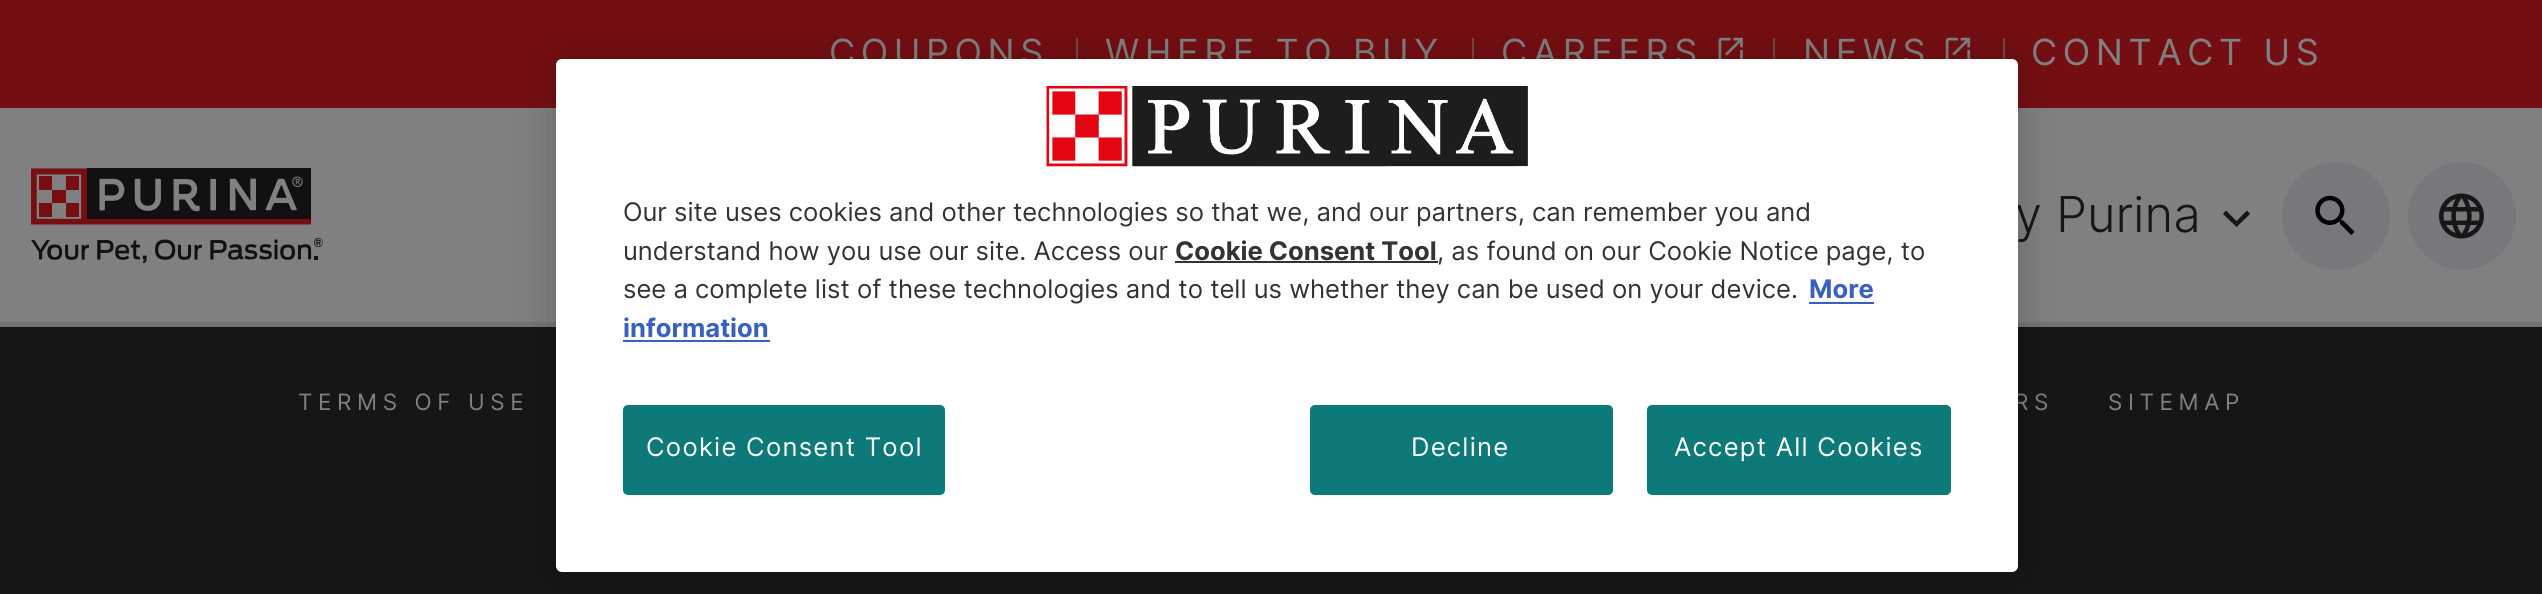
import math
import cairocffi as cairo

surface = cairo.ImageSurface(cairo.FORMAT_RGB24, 2542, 594)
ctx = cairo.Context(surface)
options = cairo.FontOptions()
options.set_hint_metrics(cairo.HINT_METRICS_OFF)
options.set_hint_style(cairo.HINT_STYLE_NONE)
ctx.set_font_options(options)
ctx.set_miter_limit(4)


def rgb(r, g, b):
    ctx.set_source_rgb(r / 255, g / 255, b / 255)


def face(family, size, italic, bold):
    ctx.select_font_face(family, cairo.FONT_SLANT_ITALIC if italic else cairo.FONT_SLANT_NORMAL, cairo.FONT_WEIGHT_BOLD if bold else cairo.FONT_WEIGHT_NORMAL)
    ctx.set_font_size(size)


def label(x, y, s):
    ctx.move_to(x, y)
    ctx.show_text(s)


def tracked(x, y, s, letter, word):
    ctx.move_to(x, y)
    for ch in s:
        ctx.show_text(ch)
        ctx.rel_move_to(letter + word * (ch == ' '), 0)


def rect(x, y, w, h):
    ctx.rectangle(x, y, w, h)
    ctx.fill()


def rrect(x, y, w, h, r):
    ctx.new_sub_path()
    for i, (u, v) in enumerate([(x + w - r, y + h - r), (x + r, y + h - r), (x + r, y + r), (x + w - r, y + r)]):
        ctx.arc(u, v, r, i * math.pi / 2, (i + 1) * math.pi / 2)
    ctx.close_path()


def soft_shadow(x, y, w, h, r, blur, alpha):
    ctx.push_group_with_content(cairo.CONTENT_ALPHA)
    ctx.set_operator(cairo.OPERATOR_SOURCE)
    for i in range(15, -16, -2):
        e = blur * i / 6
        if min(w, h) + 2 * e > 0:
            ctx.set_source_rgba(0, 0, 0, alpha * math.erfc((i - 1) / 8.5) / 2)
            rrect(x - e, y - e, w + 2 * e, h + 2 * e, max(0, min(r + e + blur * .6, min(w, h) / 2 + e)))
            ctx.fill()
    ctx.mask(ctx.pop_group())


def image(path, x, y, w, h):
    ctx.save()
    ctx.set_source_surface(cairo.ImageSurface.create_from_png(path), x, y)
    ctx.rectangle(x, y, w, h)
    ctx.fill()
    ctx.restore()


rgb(22, 22, 22)
ctx.paint()
rgb(128, 128, 128)
rect(0, 108, 2542, 214)
rgb(115, 115, 115)
rect(0, 322, 2542, 5)
rgb(116, 14, 18)
rect(0, 0, 2542, 108)
face('Inter', 36, 0, 0)
rgb(128, 128, 128)
tracked(829, 65, 'COUPONS', 5.6, 0)
rgb(122, 71, 73)
rect(1076, 38, 2, 21)
rgb(128, 128, 128)
tracked(1105, 65, 'WHERE TO BUY', 5.6, 0)
rgb(122, 71, 73)
rect(1472, 38, 2, 21)
rgb(128, 128, 128)
tracked(1501, 65, 'CAREERS', 5.6, 0)
image('image0.png', 1718, 37, 25, 22)
rgb(122, 71, 73)
rect(1773, 38, 2, 21)
rgb(128, 128, 128)
tracked(1803, 65, 'NEWS', 5.6, 0)
image('image1.png', 1945, 37, 26, 22)
rgb(122, 71, 73)
rect(2003, 38, 2, 21)
rgb(128, 128, 128)
tracked(2031, 65, 'CONTACT US', 5.6, 0)
image('image2.png', 31, 168, 292, 96)
face('Inter Light', 49.5, 0, 0)
rgb(22, 22, 22)
label(2015, 232, 'y Purina')
ctx.new_path()
ctx.move_to(2226, 210.5)
ctx.line_to(2236.5, 221)
ctx.line_to(2247, 210.5)
ctx.line_to(2250, 214)
ctx.line_to(2236.5, 227)
ctx.line_to(2223, 214)
ctx.close_path()
ctx.fill()
rgb(119, 120, 124)
ctx.arc(2336, 216, 54, 0, 2 * math.pi)
ctx.fill()
image('image3.png', 2315, 195, 40, 40)
ctx.arc(2462, 216, 54, 0, 2 * math.pi)
ctx.fill()
image('image4.png', 2439, 193, 45, 46)
face('Inter', 22.5, 0, 0)
rgb(128, 128, 128)
tracked(298, 410, 'TERMS OF USE', 5.6, 0)
tracked(2014, 410, 'RS', 5.6, 0)
tracked(2108, 410, 'SITEMAP', 5.6, 0)
rgb(0, 0, 0)
soft_shadow(556, 59, 1462, 513, 6, 20, 0.2)
rgb(255, 255, 255)
rrect(556, 59, 1462, 513, 6)
ctx.fill()
image('image5.png', 1046, 86, 482, 81)
face('Inter', 25.6, 0, 0)
rgb(51, 51, 51)
label(623, 221, 'Our site uses cookies and other technologies so that we, and our partners, can remember you and')
label(623, 260, 'understand how you use our site. Access our')
face('Inter', 25.6, 0, 1)
label(1175, 260, 'Cookie Consent Tool')
rect(1175, 261, 263, 2)
face('Inter', 25.6, 0, 0)
label(1437, 260, ', as found on our Cookie Notice page, to')
label(623, 298, 'see a complete list of these technologies and to tell us whether they can be used on your device.')
face('Inter', 25.6, 0, 1)
rgb(56, 96, 190)
label(1809, 298, 'More')
rect(1809, 302, 65, 2)
label(623, 337, 'information')
rect(623, 340, 147, 2)
rgb(13, 121, 120)
rrect(623, 405, 322, 90, 5)
ctx.fill()
face('Inter', 25.6, 0, 0)
rgb(255, 255, 255)
tracked(646, 456, 'Cookie Consent Tool', 1.25, 0)
rgb(13, 121, 120)
rrect(1310, 405, 303, 90, 5)
ctx.fill()
rgb(255, 255, 255)
tracked(1411, 456, 'Decline', 1.25, 0)
rgb(13, 121, 120)
rrect(1647, 405, 304, 90, 5)
ctx.fill()
rgb(255, 255, 255)
tracked(1674, 456, 'Accept All Cookies', 1.25, 0)
surface.write_to_png('render.png')
